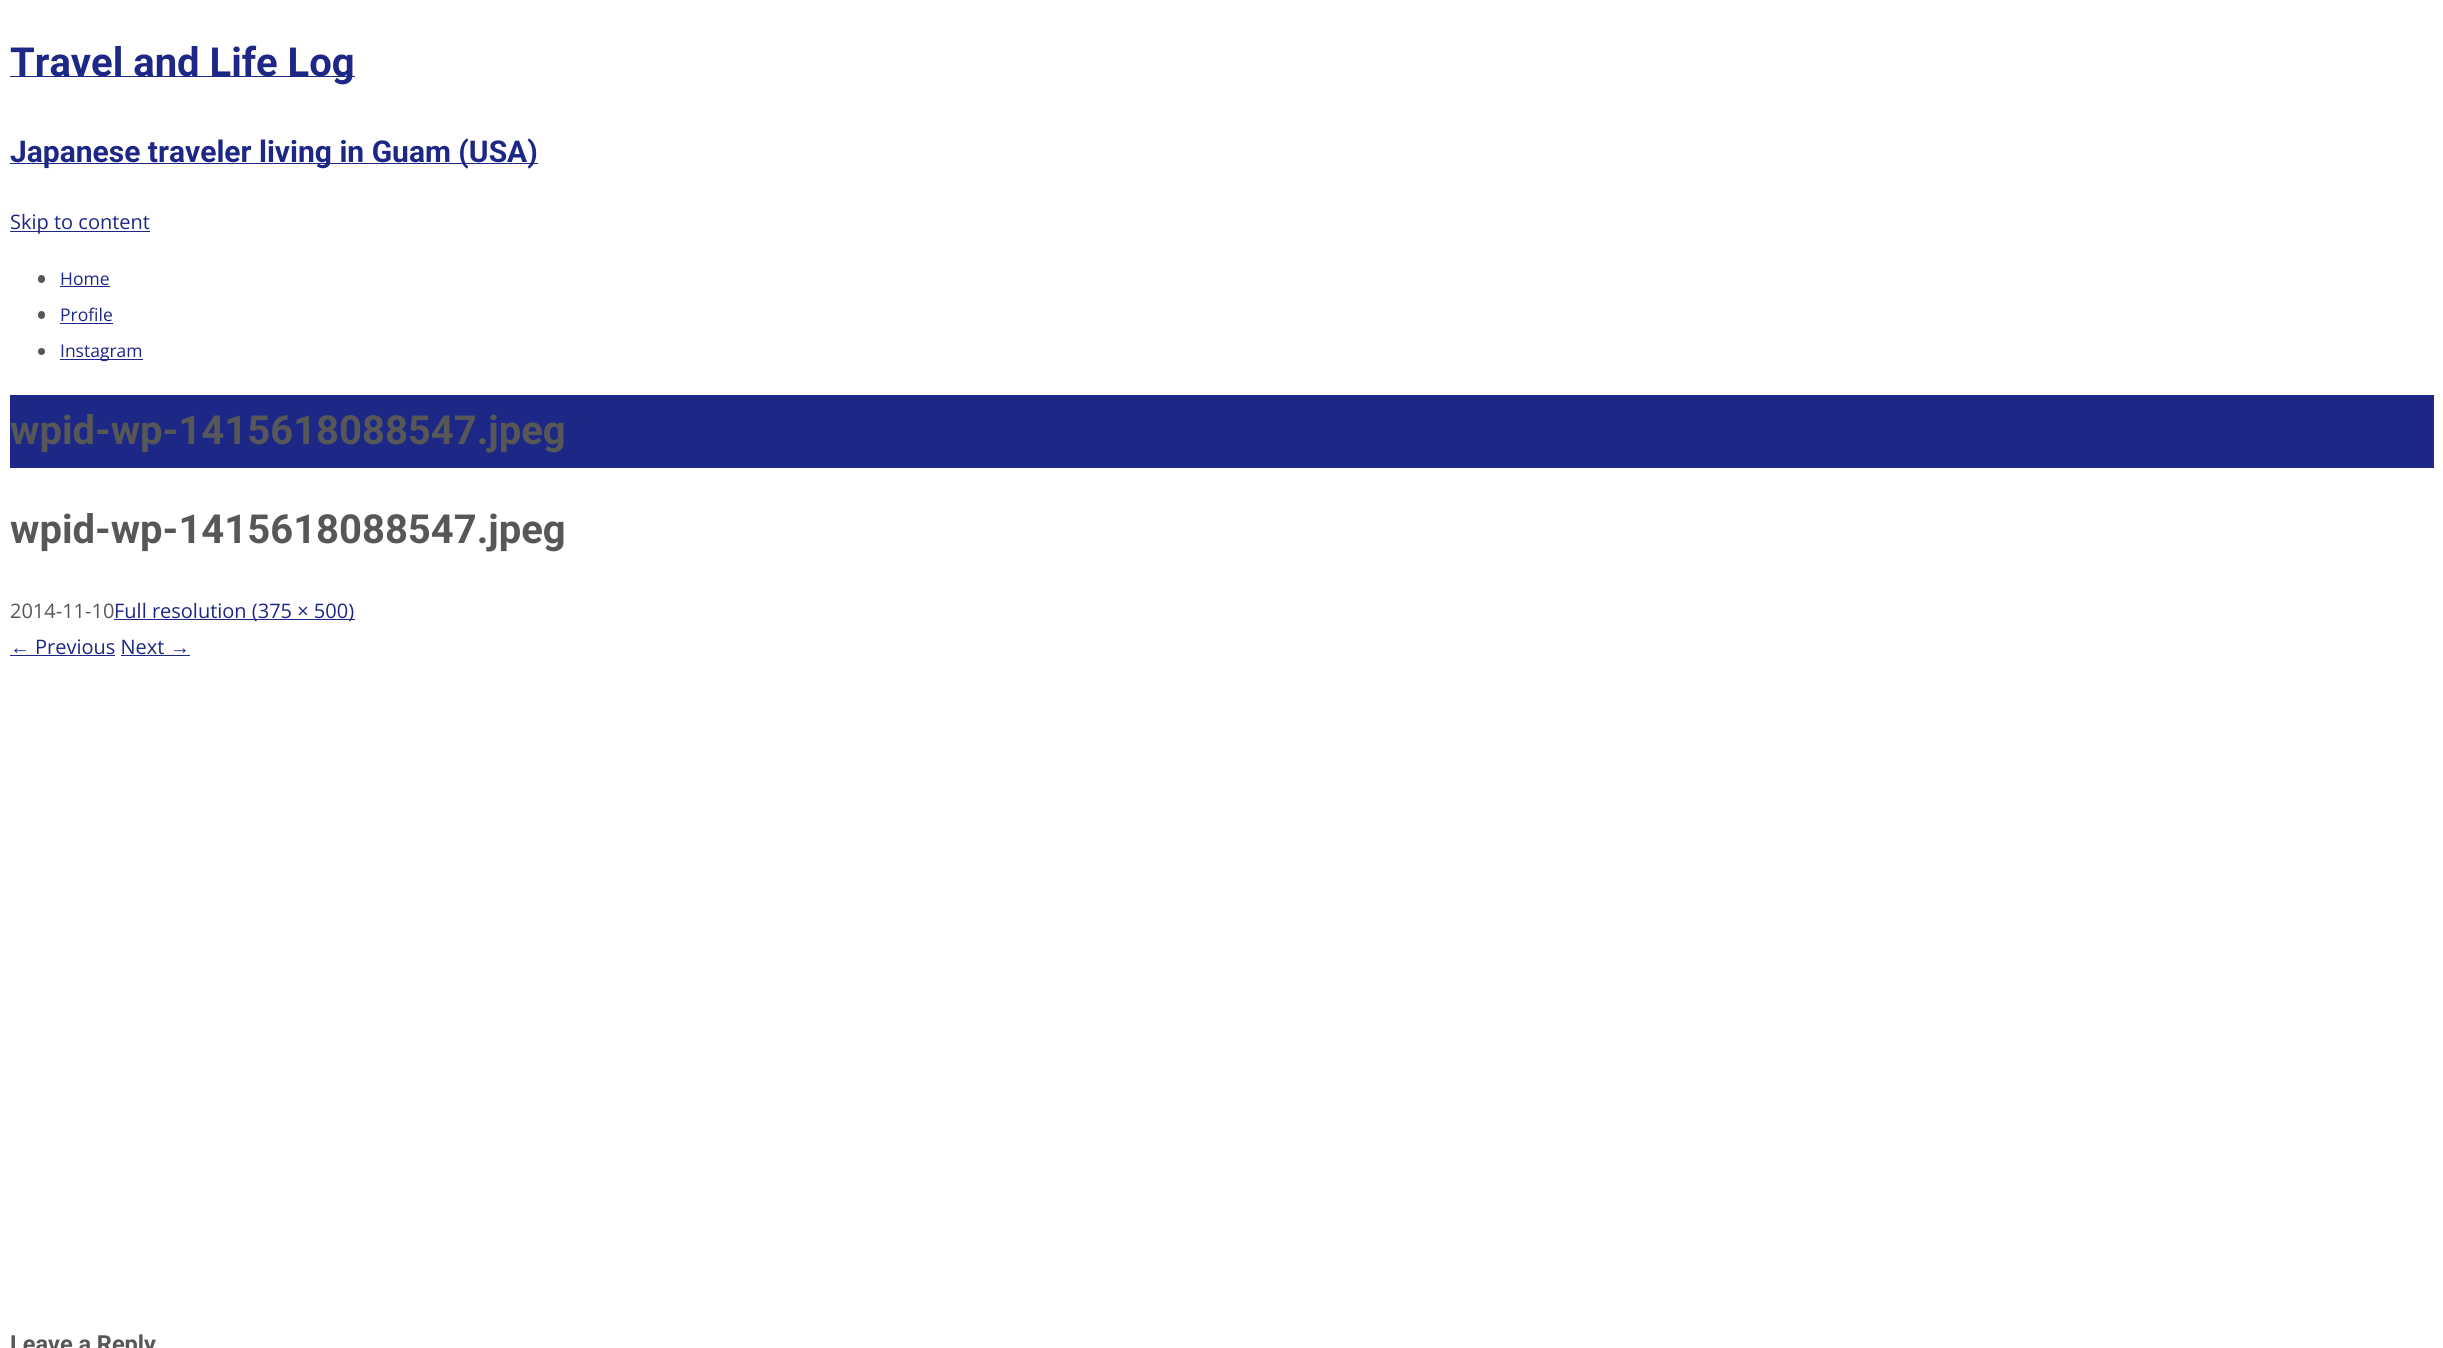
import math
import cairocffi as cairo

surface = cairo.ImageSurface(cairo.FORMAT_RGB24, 2443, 1348)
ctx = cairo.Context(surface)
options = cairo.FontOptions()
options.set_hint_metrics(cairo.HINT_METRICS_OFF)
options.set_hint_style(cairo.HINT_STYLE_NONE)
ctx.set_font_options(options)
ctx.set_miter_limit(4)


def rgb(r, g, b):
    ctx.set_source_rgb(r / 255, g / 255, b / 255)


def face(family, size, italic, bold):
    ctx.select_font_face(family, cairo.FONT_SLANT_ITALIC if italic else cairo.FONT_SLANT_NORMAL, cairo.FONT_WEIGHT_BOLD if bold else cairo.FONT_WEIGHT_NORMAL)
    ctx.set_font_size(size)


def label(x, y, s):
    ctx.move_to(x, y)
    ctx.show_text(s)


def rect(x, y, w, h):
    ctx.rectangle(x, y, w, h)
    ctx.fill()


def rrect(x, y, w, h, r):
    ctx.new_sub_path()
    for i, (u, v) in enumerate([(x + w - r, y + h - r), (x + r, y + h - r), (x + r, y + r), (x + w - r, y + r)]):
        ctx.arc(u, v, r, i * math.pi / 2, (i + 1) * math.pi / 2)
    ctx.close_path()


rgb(255, 255, 255)
ctx.paint()
rgb(29, 39, 133)
rect(10, 76, 345, 1)
face('Roboto', 40, 0, 1)
label(10, 76, 'Travel and Life Log')
rect(10, 163, 528, 1)
face('Roboto', 30, 0, 1)
label(10, 162, 'Japanese traveler living in Guam (USA)')
rect(10, 231, 140, 1)
face('Open Sans', 20, 0, 0)
label(10, 229, 'Skip to content')
rgb(87, 87, 87)
rrect(38, 275, 7, 8, 3.5)
ctx.fill()
face('Open Sans', 17.5, 0, 0)
rgb(29, 39, 133)
label(60, 285, 'Home')
rect(60, 286, 50, 1)
rgb(87, 87, 87)
rrect(38, 311, 7, 8, 3.5)
ctx.fill()
rgb(29, 39, 133)
label(60, 321, 'Profile')
rect(60, 323, 53, 1)
rgb(87, 87, 87)
ctx.new_path()
ctx.arc(41.5, 351.5, 3.5, 0, 2 * math.pi)
ctx.fill()
rgb(29, 39, 133)
rect(60, 359, 83, 1)
label(60, 357, 'Instagram')
rect(10, 395, 2424, 73)
face('Roboto', 40, 0, 1)
rgb(87, 87, 87)
label(10, 444, 'wpid-wp-1415618088547.jpeg')
label(10, 543, 'wpid-wp-1415618088547.jpeg')
face('Open Sans', 20, 0, 0)
label(10, 618, '2014-11-10')
rgb(29, 39, 133)
rect(114, 619, 241, 1)
label(114, 618, 'Full resolution (375 × 500)')
face('Liberation Sans', 20, 0, 0)
label(10, 654, '←')
rect(10, 655, 105, 1)
face('Open Sans', 20, 0, 0)
label(35, 654, 'Previous Next')
face('Liberation Sans', 20, 0, 0)
label(170, 654, '→')
rect(121, 655, 69, 1)
face('Roboto', 23.5, 0, 1)
rgb(87, 87, 87)
label(10, 1352, 'Leave a Reply')
surface.write_to_png('render.png')
